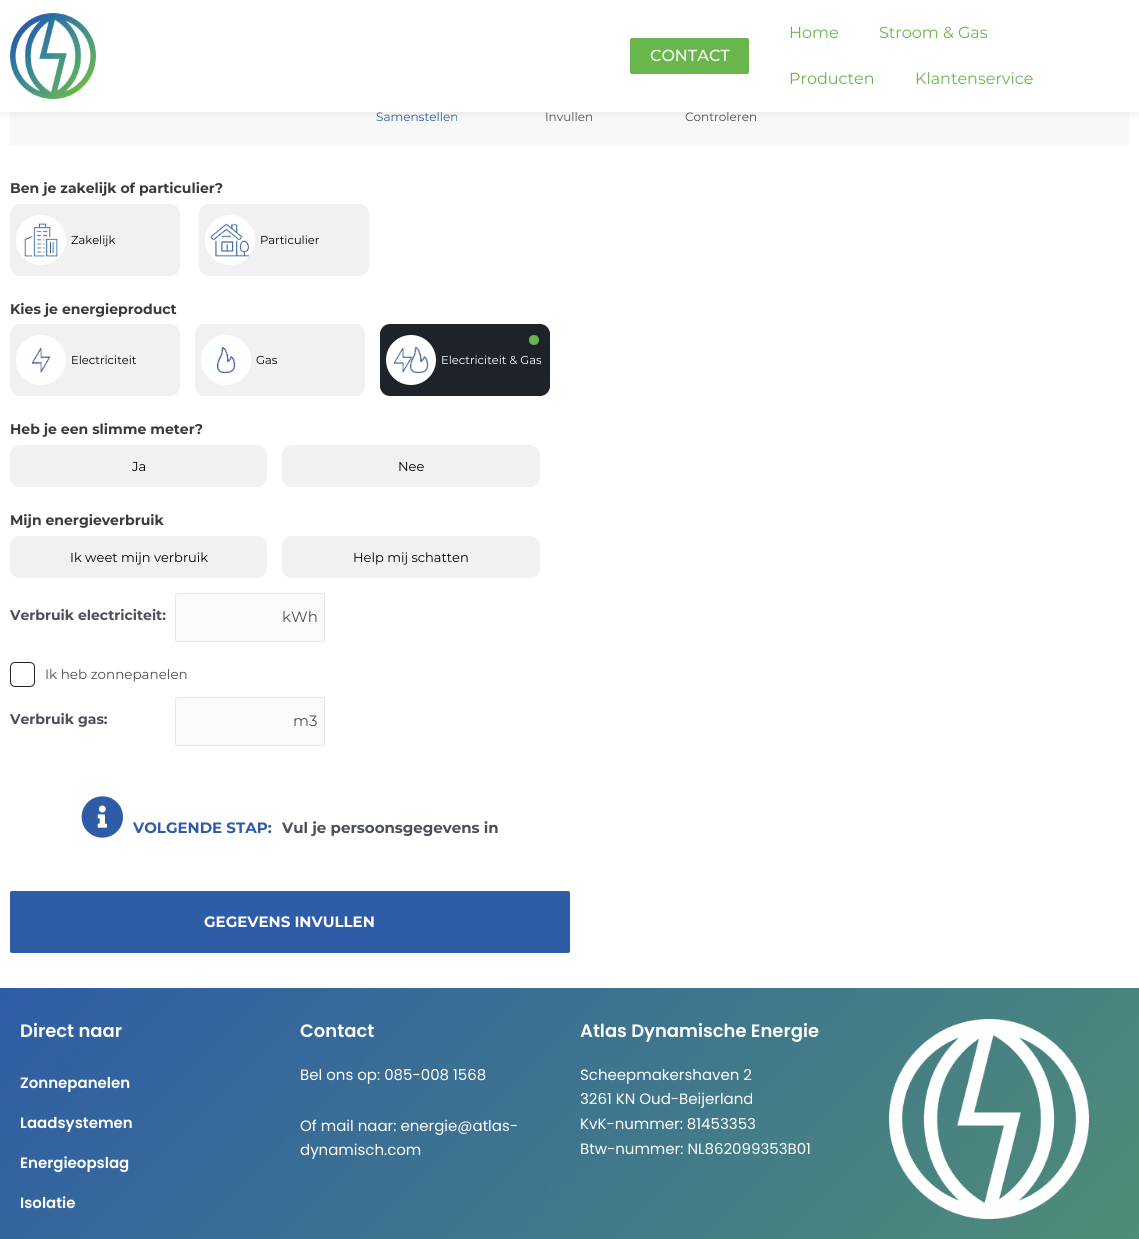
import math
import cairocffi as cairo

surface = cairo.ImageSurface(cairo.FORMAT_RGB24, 1139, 1239)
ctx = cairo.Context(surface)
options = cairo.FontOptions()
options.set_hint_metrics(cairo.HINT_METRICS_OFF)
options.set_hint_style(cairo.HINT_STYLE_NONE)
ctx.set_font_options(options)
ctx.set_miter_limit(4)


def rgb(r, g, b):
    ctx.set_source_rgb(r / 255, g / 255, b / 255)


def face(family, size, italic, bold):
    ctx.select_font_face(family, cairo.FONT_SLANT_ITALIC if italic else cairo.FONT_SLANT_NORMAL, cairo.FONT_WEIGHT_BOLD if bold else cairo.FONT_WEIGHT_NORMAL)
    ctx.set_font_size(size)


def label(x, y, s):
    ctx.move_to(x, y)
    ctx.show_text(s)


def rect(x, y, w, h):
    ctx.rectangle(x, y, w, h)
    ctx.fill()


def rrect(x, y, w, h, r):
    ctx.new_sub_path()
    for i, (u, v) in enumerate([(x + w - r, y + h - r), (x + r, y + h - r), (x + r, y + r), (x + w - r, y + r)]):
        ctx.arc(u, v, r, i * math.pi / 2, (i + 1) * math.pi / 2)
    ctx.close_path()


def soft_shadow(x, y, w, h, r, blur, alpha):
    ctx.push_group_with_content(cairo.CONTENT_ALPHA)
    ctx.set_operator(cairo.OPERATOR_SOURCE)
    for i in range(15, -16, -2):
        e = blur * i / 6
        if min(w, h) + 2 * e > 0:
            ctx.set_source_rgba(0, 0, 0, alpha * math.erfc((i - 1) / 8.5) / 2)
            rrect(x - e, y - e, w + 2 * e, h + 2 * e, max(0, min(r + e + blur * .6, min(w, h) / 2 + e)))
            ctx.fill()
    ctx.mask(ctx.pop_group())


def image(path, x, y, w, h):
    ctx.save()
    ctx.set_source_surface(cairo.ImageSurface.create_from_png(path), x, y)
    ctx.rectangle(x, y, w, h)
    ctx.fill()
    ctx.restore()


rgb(255, 255, 255)
ctx.paint()
rgb(248, 248, 248)
rect(10, 112, 1119, 33)
rgb(0, 0, 0)
soft_shadow(0, 0, 1139, 112, 0, 5, 0.1)
rgb(255, 255, 255)
rect(0, 0, 1139, 112)
image('image0.png', 10, 13, 86, 86)
rgb(105, 182, 77)
rrect(630, 38, 119, 36, 2)
ctx.fill()
face('Montserrat Medium', 16, 0, 0)
rgb(255, 255, 255)
label(650, 61, 'CONTACT')
face('Montserrat', 16, 0, 0)
rgb(105, 182, 77)
label(789, 38, 'Home')
label(879, 38, 'Stroom & Gas')
label(789, 84, 'Producten')
label(915, 84, 'Klantenservice')
face('Montserrat', 12, 0, 0)
rgb(47, 92, 167)
label(376, 121, 'Samenstellen')
rgb(75, 79, 88)
label(545, 121, 'Invullen')
label(685, 121, 'Controleren')
face('Montserrat', 14, 0, 1)
rgb(58, 58, 58)
label(10, 193, 'Ben je zakelijk of particulier?')
rgb(241, 241, 241)
rrect(10.5, 204.5, 169, 71, 9.5)
ctx.fill_preserve()
ctx.set_line_width(1)
ctx.stroke()
rgb(255, 255, 255)
ctx.arc(41, 240, 25, 0, 2 * math.pi)
ctx.fill()
image('image1.png', 24, 223, 34, 34)
face('Montserrat', 11.5, 0, 0)
rgb(0, 0, 0)
label(71, 244, 'Zakelijk')
rgb(241, 241, 241)
rrect(199.5, 204.5, 169, 71, 9.5)
ctx.fill_preserve()
ctx.stroke()
rgb(255, 255, 255)
ctx.arc(230, 240, 25, 0, 2 * math.pi)
ctx.fill()
image('image2.png', 210, 223, 40, 34)
rgb(0, 0, 0)
label(260, 244, 'Particulier')
face('Montserrat', 14, 0, 1)
rgb(58, 58, 58)
label(10, 314, 'Kies je energieproduct')
rgb(241, 241, 241)
rrect(10.5, 324.5, 169, 71, 9.5)
ctx.fill_preserve()
ctx.stroke()
rgb(255, 255, 255)
ctx.arc(41, 360, 25, 0, 2 * math.pi)
ctx.fill()
image('image3.png', 32, 347, 19, 26)
face('Montserrat', 11.5, 0, 0)
rgb(0, 0, 0)
label(71, 364, 'Electriciteit')
rgb(241, 241, 241)
rrect(195.5, 324.5, 169, 71, 9.5)
ctx.fill_preserve()
ctx.stroke()
rgb(255, 255, 255)
ctx.arc(226, 360, 25, 0, 2 * math.pi)
ctx.fill()
image('image4.png', 216, 346, 20, 28)
rgb(0, 0, 0)
label(256, 364, 'Gas')
rgb(30, 35, 41)
rrect(380.5, 324.5, 169, 71, 9.5)
ctx.fill_preserve()
ctx.stroke()
rgb(255, 255, 255)
ctx.arc(411, 360, 25, 0, 2 * math.pi)
ctx.fill()
image('image5.png', 393, 346, 36, 28)
rgb(105, 182, 77)
ctx.arc(534, 340, 5, 0, 2 * math.pi)
ctx.fill()
rgb(255, 255, 255)
label(441, 364, 'Electriciteit & Gas')
face('Montserrat', 14, 0, 1)
rgb(58, 58, 58)
label(10, 434, 'Heb je een slimme meter?')
rgb(241, 241, 241)
rrect(10.5, 445.5, 256, 41, 9.5)
ctx.fill_preserve()
ctx.stroke()
face('Montserrat', 13, 0, 0)
rgb(0, 0, 0)
label(132, 471, 'Ja')
rgb(241, 241, 241)
rrect(282.5, 445.5, 257, 41, 9.5)
ctx.fill_preserve()
ctx.stroke()
rgb(0, 0, 0)
label(398, 471, 'Nee')
face('Montserrat', 14, 0, 1)
rgb(58, 58, 58)
label(10, 525, 'Mijn energieverbruik')
rgb(241, 241, 241)
rrect(10.5, 536.5, 256, 41, 9.5)
ctx.fill_preserve()
ctx.stroke()
face('Montserrat', 13, 0, 0)
rgb(0, 0, 0)
label(70, 562, 'Ik weet mijn verbruik')
rgb(241, 241, 241)
rrect(282.5, 536.5, 257, 41, 9.5)
ctx.fill_preserve()
ctx.stroke()
rgb(0, 0, 0)
label(353, 562, 'Help mij schatten')
face('Montserrat', 14, 0, 1)
rgb(75, 79, 88)
label(10, 620, 'Verbruik electriciteit:')
rgb(250, 250, 250)
rrect(175.5, 593.5, 149, 48, 1.5)
ctx.fill_preserve()
rgb(229, 229, 229)
ctx.stroke()
face('Montserrat', 15, 0, 0)
rgb(75, 79, 88)
label(282, 622, 'kWh')
rrect(10.5, 662.5, 24, 24, 4.5)
rgb(30, 35, 41)
ctx.stroke()
face('Montserrat', 13.5, 0, 0)
rgb(75, 79, 88)
label(45, 679, 'Ik heb zonnepanelen')
face('Montserrat', 14, 0, 1)
label(10, 724, 'Verbruik gas:')
rgb(250, 250, 250)
rrect(175.5, 697.5, 149, 48, 1.5)
ctx.fill_preserve()
rgb(229, 229, 229)
ctx.stroke()
face('Montserrat', 15, 0, 0)
rgb(75, 79, 88)
label(293, 726, 'm3')
image('image6.png', 81, 796, 42, 42)
face('Montserrat', 15, 0, 1)
rgb(47, 92, 167)
label(133, 833, 'VOLGENDE STAP:')
rgb(75, 79, 88)
label(282, 833, 'Vul je persoonsgegevens in')
rgb(47, 92, 167)
rrect(10.5, 891.5, 559, 61, 1.5)
ctx.fill_preserve()
ctx.stroke()
rgb(255, 255, 255)
label(204, 927, 'GEGEVENS INVULLEN')
image('image7.png', 0, 988, 1139, 251)
face('Poppins SemiBold', 18, 0, 0)
label(20, 1037, 'Direct naar')
face('Poppins SemiBold', 15, 0, 0)
label(20, 1088, 'Zonnepanelen')
label(20, 1128, 'Laadsystemen')
label(20, 1168, 'Energieopslag')
label(20, 1208, 'Isolatie')
face('Poppins SemiBold', 18, 0, 0)
label(300, 1037, 'Contact')
face('Poppins', 15, 0, 0)
label(300, 1080, 'Bel ons op: 085-008 1568')
label(300, 1131, 'Of mail naar: energie@atlas-')
label(300, 1155, 'dynamisch.com')
face('Poppins SemiBold', 18, 0, 0)
label(580, 1037, 'Atlas Dynamische Energie')
face('Poppins', 15, 0, 0)
label(580, 1080, 'Scheepmakershaven 2')
label(580, 1104, '3261 KN Oud-Beijerland')
label(580, 1129, 'KvK-nummer: 81453353')
label(580, 1154, 'Btw-nummer: NL862099353B01')
image('image8.png', 889, 1019, 200, 200)
surface.write_to_png('render.png')
